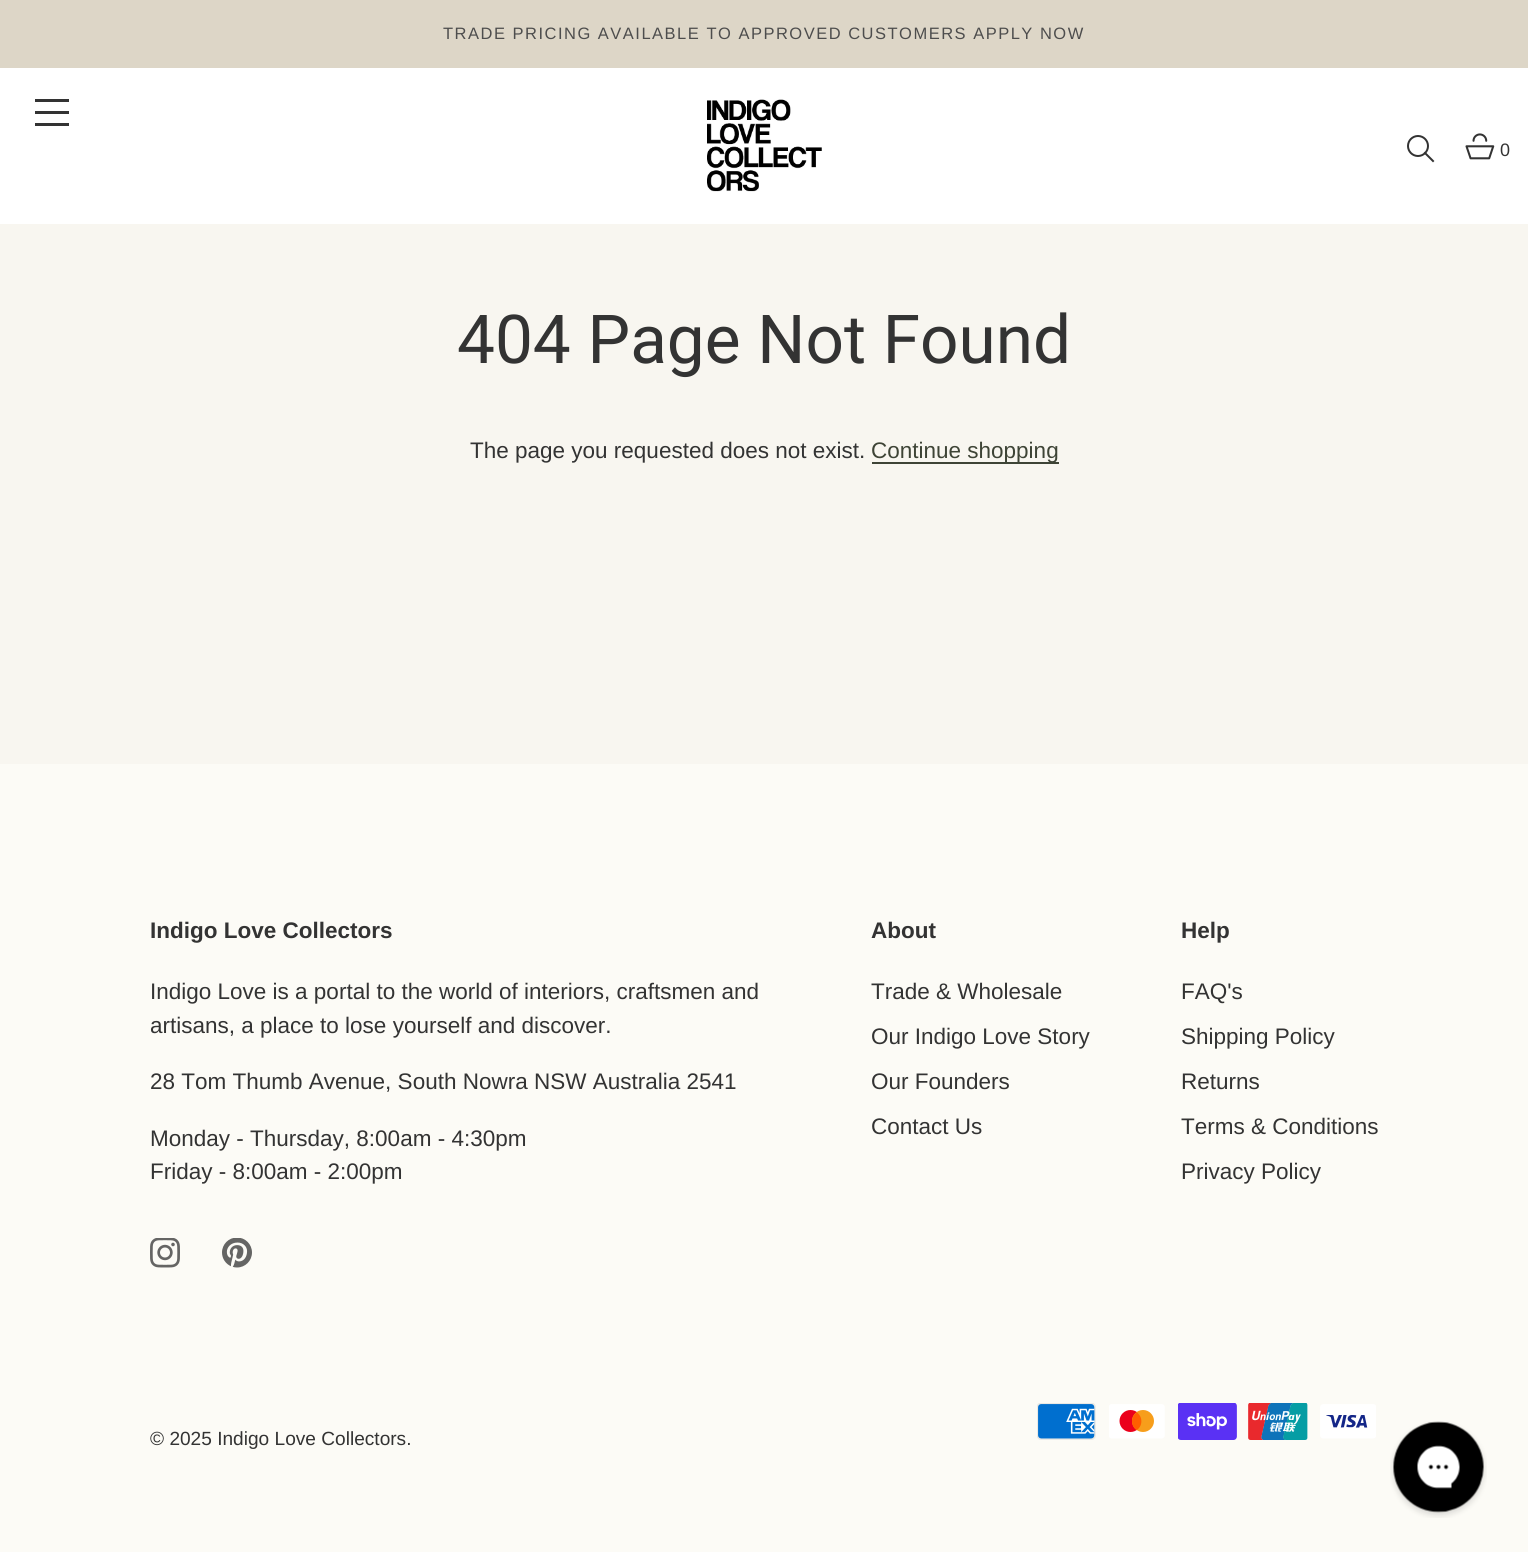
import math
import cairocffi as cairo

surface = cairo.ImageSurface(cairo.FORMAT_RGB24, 1528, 1552)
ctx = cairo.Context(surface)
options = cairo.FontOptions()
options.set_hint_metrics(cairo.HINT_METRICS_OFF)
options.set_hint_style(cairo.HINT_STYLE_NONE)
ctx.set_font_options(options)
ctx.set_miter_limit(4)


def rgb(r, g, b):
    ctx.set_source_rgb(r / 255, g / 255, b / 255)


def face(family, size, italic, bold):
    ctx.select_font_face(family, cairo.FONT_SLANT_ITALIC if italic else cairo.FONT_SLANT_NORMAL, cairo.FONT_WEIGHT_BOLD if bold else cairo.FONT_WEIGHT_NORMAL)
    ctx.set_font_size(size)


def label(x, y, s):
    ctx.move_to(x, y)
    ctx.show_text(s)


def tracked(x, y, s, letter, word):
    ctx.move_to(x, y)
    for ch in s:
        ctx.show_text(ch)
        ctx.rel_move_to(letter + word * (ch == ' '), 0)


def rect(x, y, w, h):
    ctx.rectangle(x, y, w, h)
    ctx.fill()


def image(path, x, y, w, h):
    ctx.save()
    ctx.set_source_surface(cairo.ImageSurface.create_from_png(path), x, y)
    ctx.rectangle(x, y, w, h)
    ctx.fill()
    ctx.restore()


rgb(248, 246, 240)
ctx.paint()
rgb(255, 255, 255)
rect(0, 68, 1528, 156)
rgb(221, 214, 199)
rect(0, 0, 1528, 68)
face('Liberation Sans', 16.5, 0, 0)
rgb(77, 77, 77)
tracked(443, 39, 'TRADE PRICING AVAILABLE TO APPROVED CUSTOMERS APPLY NOW', 1.5, 0)
rgb(51, 51, 51)
rect(35, 99, 34, 3)
rect(35, 111, 34, 3)
rect(35, 123, 34, 3)
image('image0.png', 707, 99, 115, 93)
ctx.new_path()
ctx.move_to(1433, 161)
ctx.line_to(1425, 153)
ctx.set_line_cap(cairo.LINE_CAP_SQUARE)
ctx.stroke()
ctx.arc(1418, 146, 10, 0, 2 * math.pi)
ctx.set_line_cap(cairo.LINE_CAP_BUTT)
ctx.stroke()
image('image1.png', 1465, 133, 30, 27)
face('Liberation Sans', 18, 0, 0)
label(1500, 156, '0')
face('Roboto', 67.5, 0, 0)
label(457, 363, '404 Page Not Found')
face('Liberation Sans', 22.5, 0, 0)
label(470, 458, 'The page you requested does not exist.')
rgb(62, 68, 54)
rect(872, 462, 187, 2)
label(871, 458, 'Continue shopping')
rgb(252, 251, 246)
rect(0, 764, 1528, 788)
face('Liberation Sans', 22.5, 0, 1)
rgb(51, 51, 51)
label(150, 938, 'Indigo Love Collectors')
face('Liberation Sans', 22.5, 0, 0)
label(150, 999, 'Indigo Love is a portal to the world of interiors, craftsmen and')
label(150, 1033, 'artisans, a place to lose yourself and discover.')
label(150, 1089, '28 Tom Thumb Avenue, South Nowra NSW Australia 2541')
label(150, 1146, 'Monday - Thursday, 8:00am - 4:30pm')
label(150, 1179, 'Friday - 8:00am - 2:00pm')
image('image2.png', 150, 1238, 30, 30)
image('image3.png', 222, 1238, 30, 30)
face('Liberation Sans', 22.5, 0, 1)
label(871, 938, 'About')
face('Liberation Sans', 22.5, 0, 0)
label(871, 999, 'Trade & Wholesale')
label(871, 1044, 'Our Indigo Love Story')
label(871, 1089, 'Our Founders')
label(871, 1134, 'Contact Us')
face('Liberation Sans', 22.5, 0, 1)
label(1181, 938, 'Help')
face('Liberation Sans', 22.5, 0, 0)
label(1181, 999, 'FAQ\'s')
label(1181, 1044, 'Shipping Policy')
label(1181, 1089, 'Returns')
label(1181, 1134, 'Terms & Conditions')
label(1181, 1179, 'Privacy Policy')
face('Liberation Sans', 19.1, 0, 0)
label(150, 1445, '© 2025 Indigo Love Collectors.')
image('image4.png', 1037, 1403, 59, 37)
image('image5.png', 1109, 1404, 56, 35)
image('image6.png', 1178, 1403, 59, 37)
image('image7.png', 1248, 1403, 60, 37)
image('image8.png', 1320, 1404, 56, 35)
image('image9.png', 1390, 1421, 97, 97)
surface.write_to_png('render.png')
